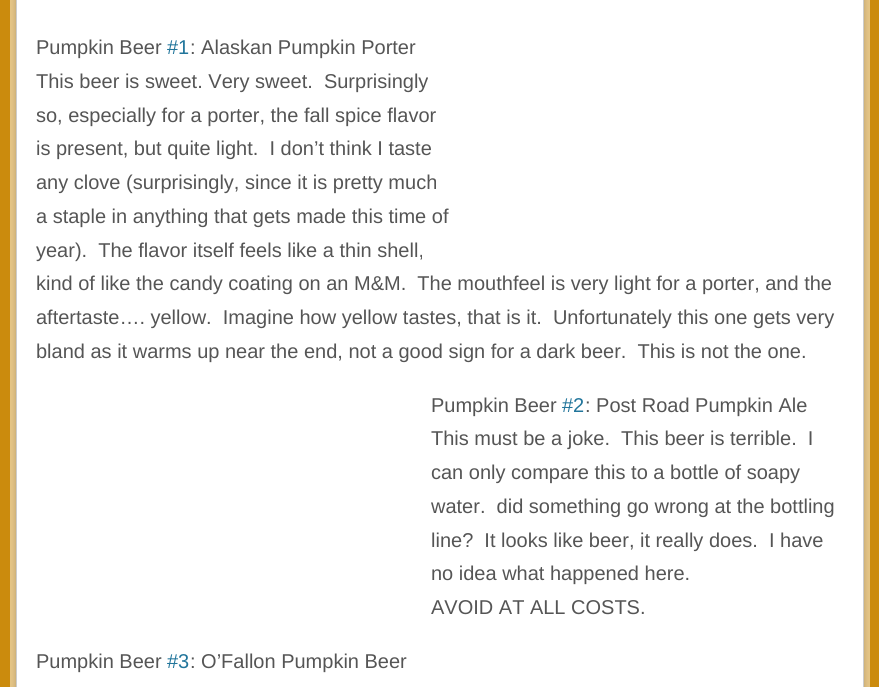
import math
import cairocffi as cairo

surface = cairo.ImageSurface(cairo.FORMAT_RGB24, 879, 687)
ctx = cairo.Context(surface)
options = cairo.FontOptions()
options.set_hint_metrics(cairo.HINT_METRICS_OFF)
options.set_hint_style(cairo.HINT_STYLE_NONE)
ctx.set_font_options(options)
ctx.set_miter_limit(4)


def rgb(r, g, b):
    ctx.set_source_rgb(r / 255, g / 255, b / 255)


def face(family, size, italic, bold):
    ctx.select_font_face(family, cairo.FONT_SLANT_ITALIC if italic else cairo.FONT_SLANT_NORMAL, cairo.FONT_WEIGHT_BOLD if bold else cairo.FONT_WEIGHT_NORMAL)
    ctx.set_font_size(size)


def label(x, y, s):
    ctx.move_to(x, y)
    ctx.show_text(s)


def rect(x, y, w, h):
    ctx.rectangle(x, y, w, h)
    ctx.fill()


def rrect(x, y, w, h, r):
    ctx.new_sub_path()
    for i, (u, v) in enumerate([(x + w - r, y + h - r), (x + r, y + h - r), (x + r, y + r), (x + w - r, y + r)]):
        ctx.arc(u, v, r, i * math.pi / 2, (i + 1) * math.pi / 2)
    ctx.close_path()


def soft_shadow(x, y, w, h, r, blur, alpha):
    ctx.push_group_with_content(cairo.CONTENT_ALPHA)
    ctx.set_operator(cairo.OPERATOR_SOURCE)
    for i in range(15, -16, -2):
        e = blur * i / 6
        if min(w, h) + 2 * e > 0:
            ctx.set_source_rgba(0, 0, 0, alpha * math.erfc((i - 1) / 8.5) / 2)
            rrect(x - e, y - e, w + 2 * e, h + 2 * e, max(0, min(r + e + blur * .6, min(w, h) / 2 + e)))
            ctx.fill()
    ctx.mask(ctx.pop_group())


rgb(203, 139, 13)
ctx.paint()
rgb(229, 197, 134)
rect(10, 0, 860, 687)
rgb(0, 0, 0)
soft_shadow(16, -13, 848, 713, 4, 3, 0.2)
rgb(255, 255, 255)
ctx.rectangle(16.5, -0.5, 847, 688)
ctx.fill_preserve()
rgb(204, 204, 204)
ctx.set_line_width(1)
ctx.stroke()
face('Liberation Sans', 20, 0, 0)
rgb(85, 85, 85)
label(36, 54, 'Pumpkin Beer')
rgb(33, 117, 155)
label(167, 54, '#1')
rgb(85, 85, 85)
label(190, 54, ': Alaskan Pumpkin Porter')
label(36, 88, 'This beer is sweet. Very sweet.  Surprisingly')
label(36, 122, 'so, especially for a porter, the fall spice flavor')
label(36, 155, 'is present, but quite light.  I don’t think I taste')
label(36, 189, 'any clove (surprisingly, since it is pretty much')
label(36, 223, 'a staple in anything that gets made this time of')
label(36, 257, 'year).  The flavor itself feels like a thin shell,')
label(36, 290, 'kind of like the candy coating on an M&M.  The mouthfeel is very light for a porter, and the')
label(36, 324, 'aftertaste…. yellow.  Imagine how yellow tastes, that is it.  Unfortunately this one gets very')
label(36, 358, 'bland as it warms up near the end, not a good sign for a dark beer.  This is not the one.')
label(431, 412, 'Pumpkin Beer')
rgb(33, 117, 155)
label(562, 412, '#2')
rgb(85, 85, 85)
label(585, 412, ': Post Road Pumpkin Ale')
label(431, 445, 'This must be a joke.  This beer is terrible.  I')
label(431, 479, 'can only compare this to a bottle of soapy')
label(431, 513, 'water.  did something go wrong at the bottling')
label(431, 547, 'line?  It looks like beer, it really does.  I have')
label(431, 580, 'no idea what happened here.')
label(431, 614, 'AVOID AT ALL COSTS.')
label(36, 668, 'Pumpkin Beer')
rgb(33, 117, 155)
label(167, 668, '#3')
rgb(85, 85, 85)
label(190, 668, ': O’Fallon Pumpkin Beer')
surface.write_to_png('render.png')
